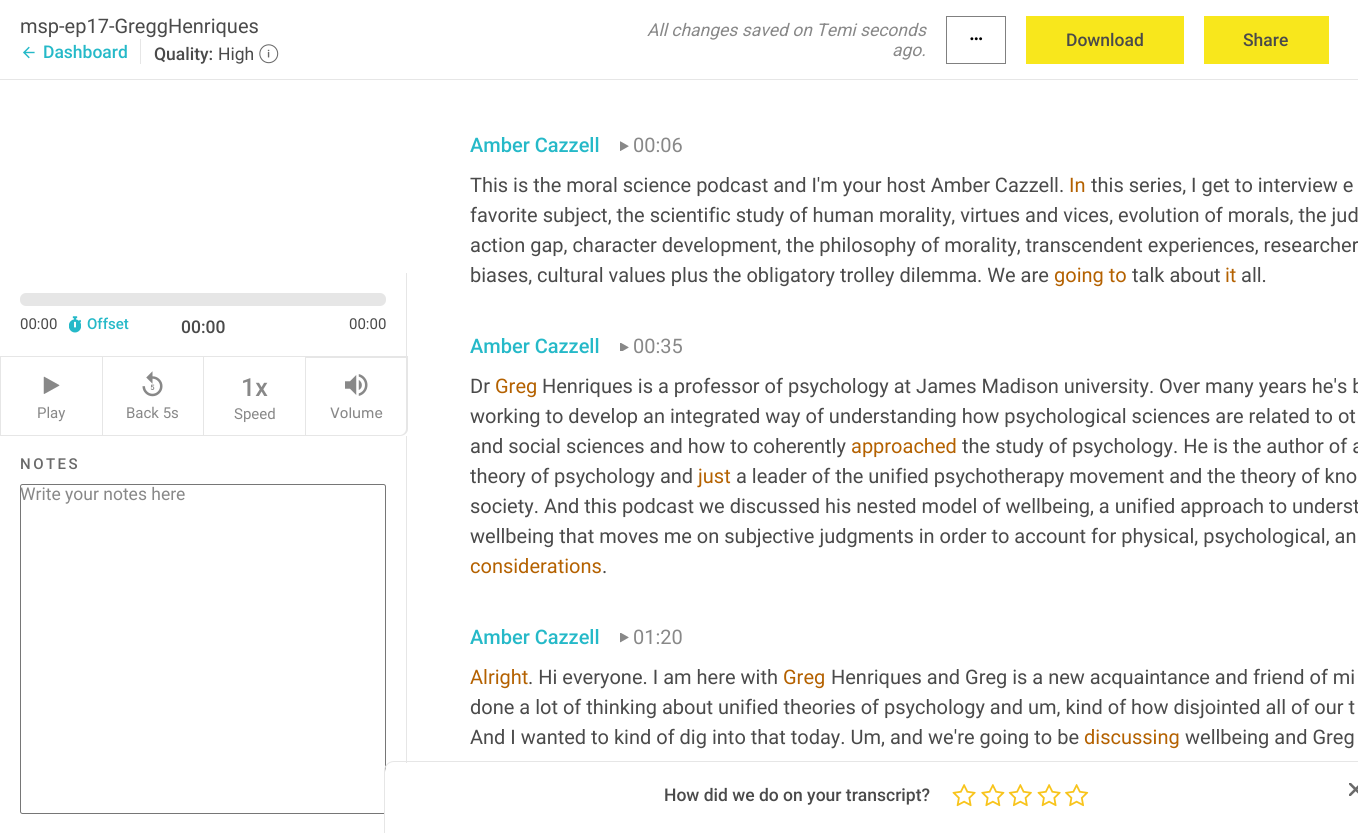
import math
import cairocffi as cairo

surface = cairo.ImageSurface(cairo.FORMAT_RGB24, 1358, 833)
ctx = cairo.Context(surface)
options = cairo.FontOptions()
options.set_hint_metrics(cairo.HINT_METRICS_OFF)
options.set_hint_style(cairo.HINT_STYLE_NONE)
ctx.set_font_options(options)
ctx.set_miter_limit(4)


def rgb(r, g, b):
    ctx.set_source_rgb(r / 255, g / 255, b / 255)


def face(family, size, italic, bold):
    ctx.select_font_face(family, cairo.FONT_SLANT_ITALIC if italic else cairo.FONT_SLANT_NORMAL, cairo.FONT_WEIGHT_BOLD if bold else cairo.FONT_WEIGHT_NORMAL)
    ctx.set_font_size(size)


def label(x, y, s):
    ctx.move_to(x, y)
    ctx.show_text(s)


def tracked(x, y, s, letter, word):
    ctx.move_to(x, y)
    for ch in s:
        ctx.show_text(ch)
        ctx.rel_move_to(letter + word * (ch == ' '), 0)


def rect(x, y, w, h):
    ctx.rectangle(x, y, w, h)
    ctx.fill()


def rrect(x, y, w, h, r):
    ctx.new_sub_path()
    for i, (u, v) in enumerate([(x + w - r, y + h - r), (x + r, y + h - r), (x + r, y + r), (x + w - r, y + r)]):
        ctx.arc(u, v, r, i * math.pi / 2, (i + 1) * math.pi / 2)
    ctx.close_path()


def image(path, x, y, w, h):
    ctx.save()
    ctx.set_source_surface(cairo.ImageSurface.create_from_png(path), x, y)
    ctx.rectangle(x, y, w, h)
    ctx.fill()
    ctx.restore()


rgb(255, 255, 255)
ctx.paint()
rgb(230, 230, 230)
rect(0, 79, 1358, 1)
face('Roboto', 20, 0, 0)
rgb(74, 74, 74)
label(20, 33, 'msp-ep17-GreggHenriques')
image('image0.png', 23, 46, 12, 13)
face('Roboto Medium', 17.5, 0, 0)
rgb(37, 185, 200)
label(43, 58, 'Dashboard')
rgb(230, 230, 230)
rect(140, 39, 1, 25)
rgb(74, 74, 74)
label(154, 60, 'Quality:')
face('Roboto', 17.5, 0, 0)
label(218, 60, 'High')
image('image1.png', 259, 44, 20, 20)
face('Roboto', 17.5, 1, 0)
rgb(136, 136, 136)
label(647, 36, 'All changes saved on Temi seconds')
label(892, 56, 'ago.')
ctx.rectangle(946.5, 16.5, 59, 47)
rgb(128, 128, 128)
ctx.set_line_width(1)
ctx.stroke()
image('image2.png', 970, 37, 13, 4)
rgb(248, 231, 28)
rect(1026, 16, 158, 48)
face('Roboto Medium', 17.5, 0, 0)
rgb(74, 74, 74)
label(1066, 46, 'Download')
rgb(248, 231, 28)
rect(1204, 16, 125, 48)
rgb(74, 74, 74)
label(1243, 46, 'Share')
rgb(230, 230, 230)
rect(406, 273, 1, 83)
rrect(20, 293, 366, 13, 6)
ctx.fill()
face('Roboto', 15, 0, 0)
rgb(74, 74, 74)
label(20, 329, '00:00')
image('image3.png', 69, 316, 12, 17)
face('Roboto Medium', 15, 0, 0)
rgb(37, 185, 200)
label(87, 329, 'Offset')
face('Roboto Medium', 17.5, 0, 0)
rgb(74, 74, 74)
label(181, 333, '00:00')
face('Roboto', 15, 0, 0)
label(349, 329, '00:00')
ctx.rectangle(0.5, 356.5, 102, 79)
rgb(230, 230, 230)
ctx.stroke()
image('image4.png', 43, 376, 17, 18)
rgb(136, 136, 136)
label(37, 418, 'Play')
rgb(230, 230, 230)
rect(103, 356, 203, 1)
rect(203, 356, 1, 80)
rect(103, 435, 101, 1)
image('image5.png', 142, 371, 21, 26)
rgb(136, 136, 136)
label(126, 418, 'Back 5s')
rgb(230, 230, 230)
rect(305, 356, 1, 80)
rect(204, 435, 102, 1)
face('Roboto Medium', 25, 0, 0)
rgb(136, 136, 136)
label(241, 396, '1x')
face('Roboto', 15, 0, 0)
label(234, 419, 'Speed')
rgb(230, 230, 230)
ctx.set_fill_rule(cairo.FILL_RULE_EVEN_ODD)
ctx.new_path()
ctx.move_to(306, 356)
ctx.line_to(408, 356)
ctx.line_to(408, 429)
ctx.curve_to(408, 433, 404, 436, 400, 436)
ctx.line_to(306, 436)
ctx.close_path()
ctx.move_to(306, 358)
ctx.line_to(406, 358)
ctx.line_to(406, 429)
ctx.curve_to(406, 432, 403, 435, 400, 435)
ctx.line_to(306, 435)
ctx.close_path()
ctx.fill()
image('image6.png', 345, 374, 23, 22)
face('Rubik', 15, 0, 0)
rgb(136, 136, 136)
label(330, 418, 'Volume')
rgb(230, 230, 230)
rect(406, 436, 1, 327)
face('Roboto Medium', 15, 0, 0)
rgb(106, 106, 106)
tracked(20, 469, 'NOTES', 2.5, 0)
rrect(20.5, 484.5, 365, 329, 2)
rgb(118, 118, 118)
ctx.stroke()
face('Roboto', 17.5, 0, 0)
rgb(136, 136, 136)
label(20, 500, 'Write your notes here')
face('Roboto Medium', 20, 0, 0)
rgb(37, 185, 200)
label(470, 152, 'Amber Cazzell')
image('image7.png', 620, 141, 9, 10)
face('Roboto', 20, 0, 0)
rgb(136, 136, 136)
label(633, 152, '00:06')
rgb(74, 74, 74)
label(470, 192, 'This is the moral science podcast and I\'m your host Amber Cazzell.')
rgb(180, 97, 0)
label(1069, 192, 'In')
rgb(74, 74, 74)
label(1091, 192, 'this series, I get to interview e')
label(470, 222, 'favorite subject, the scientific study of human morality, virtues and vices, evolution of morals, the jud')
label(470, 252, 'action gap, character development, the philosophy of morality, transcendent experiences, researcher')
label(470, 282, 'biases, cultural values plus the obligatory trolley dilemma. We are')
rgb(180, 97, 0)
label(1054, 282, 'going to')
rgb(74, 74, 74)
label(1132, 282, 'talk about')
rgb(180, 97, 0)
label(1225, 282, 'it')
rgb(74, 74, 74)
label(1241, 282, 'all.')
face('Roboto Medium', 20, 0, 0)
rgb(37, 185, 200)
label(470, 353, 'Amber Cazzell')
image('image8.png', 620, 343, 9, 8)
face('Roboto', 20, 0, 0)
rgb(136, 136, 136)
label(633, 353, '00:35')
rgb(74, 74, 74)
label(470, 393, 'Dr')
rgb(180, 97, 0)
label(495, 393, 'Greg')
rgb(74, 74, 74)
label(542, 393, 'Henriques is a professor of psychology at James Madison university. Over many years he\'s b')
label(470, 423, 'working to develop an integrated way of understanding how psychological sciences are related to ot')
label(470, 453, 'and social sciences and how to coherently')
rgb(180, 97, 0)
label(851, 453, 'approached')
rgb(74, 74, 74)
label(962, 453, 'the study of psychology. He is the author of a')
label(470, 483, 'theory of psychology and')
rgb(180, 97, 0)
label(698, 483, 'just')
rgb(74, 74, 74)
label(736, 483, 'a leader of the unified psychotherapy movement and the theory of kno')
label(470, 513, 'society. And this podcast we discussed his nested model of wellbeing, a unified approach to underst')
label(470, 543, 'wellbeing that moves me on subjective judgments in order to account for physical, psychological, an')
rgb(180, 97, 0)
label(470, 573, 'considerations')
rgb(74, 74, 74)
label(602, 573, '.')
face('Roboto Medium', 20, 0, 0)
rgb(37, 185, 200)
label(470, 644, 'Amber Cazzell')
image('image9.png', 620, 633, 9, 10)
face('Roboto', 20, 0, 0)
rgb(136, 136, 136)
label(633, 644, '01:20')
rgb(180, 97, 0)
label(470, 684, 'Alright')
rgb(74, 74, 74)
label(528, 684, '. Hi everyone. I am here with')
rgb(180, 97, 0)
label(783, 684, 'Greg')
rgb(74, 74, 74)
label(831, 684, 'Henriques and Greg is a new acquaintance and friend of mi')
label(470, 714, 'done a lot of thinking about unified theories of psychology and um, kind of how disjointed all of our t')
label(470, 744, 'And I wanted to kind of dig into that today. Um, and we\'re going to be')
rgb(180, 97, 0)
label(1084, 744, 'discussing')
rgb(74, 74, 74)
label(1185, 744, 'wellbeing and Greg')
rgb(255, 255, 255)
ctx.new_path()
ctx.move_to(394, 763)
ctx.line_to(1358, 763)
ctx.curve_to(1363, 763, 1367, 767, 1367, 772)
ctx.line_to(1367, 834)
ctx.line_to(385, 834)
ctx.line_to(385, 772)
ctx.curve_to(385, 767, 389, 763, 394, 763)
ctx.close_path()
ctx.fill()
rgb(230, 230, 230)
ctx.new_path()
ctx.move_to(394, 761)
ctx.line_to(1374, 761)
ctx.curve_to(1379, 761, 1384, 766, 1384, 771)
ctx.line_to(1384, 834)
ctx.line_to(384, 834)
ctx.line_to(384, 771)
ctx.curve_to(384, 766, 388, 761, 394, 761)
ctx.close_path()
ctx.move_to(394, 762)
ctx.line_to(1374, 762)
ctx.curve_to(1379, 762, 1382, 766, 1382, 771)
ctx.line_to(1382, 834)
ctx.line_to(385, 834)
ctx.line_to(385, 771)
ctx.curve_to(385, 766, 389, 762, 394, 762)
ctx.close_path()
ctx.fill()
face('Roboto Medium', 17.5, 0, 0)
rgb(74, 74, 74)
label(664, 801, 'How did we do on your transcript?')
image('image10.png', 952, 784, 24, 23)
image('image11.png', 981, 784, 24, 23)
image('image12.png', 1008, 784, 24, 23)
image('image10.png', 1037, 784, 24, 23)
image('image13.png', 1065, 784, 24, 23)
image('image14.png', 1349, 783, 9, 13)
surface.write_to_png('render.png')
